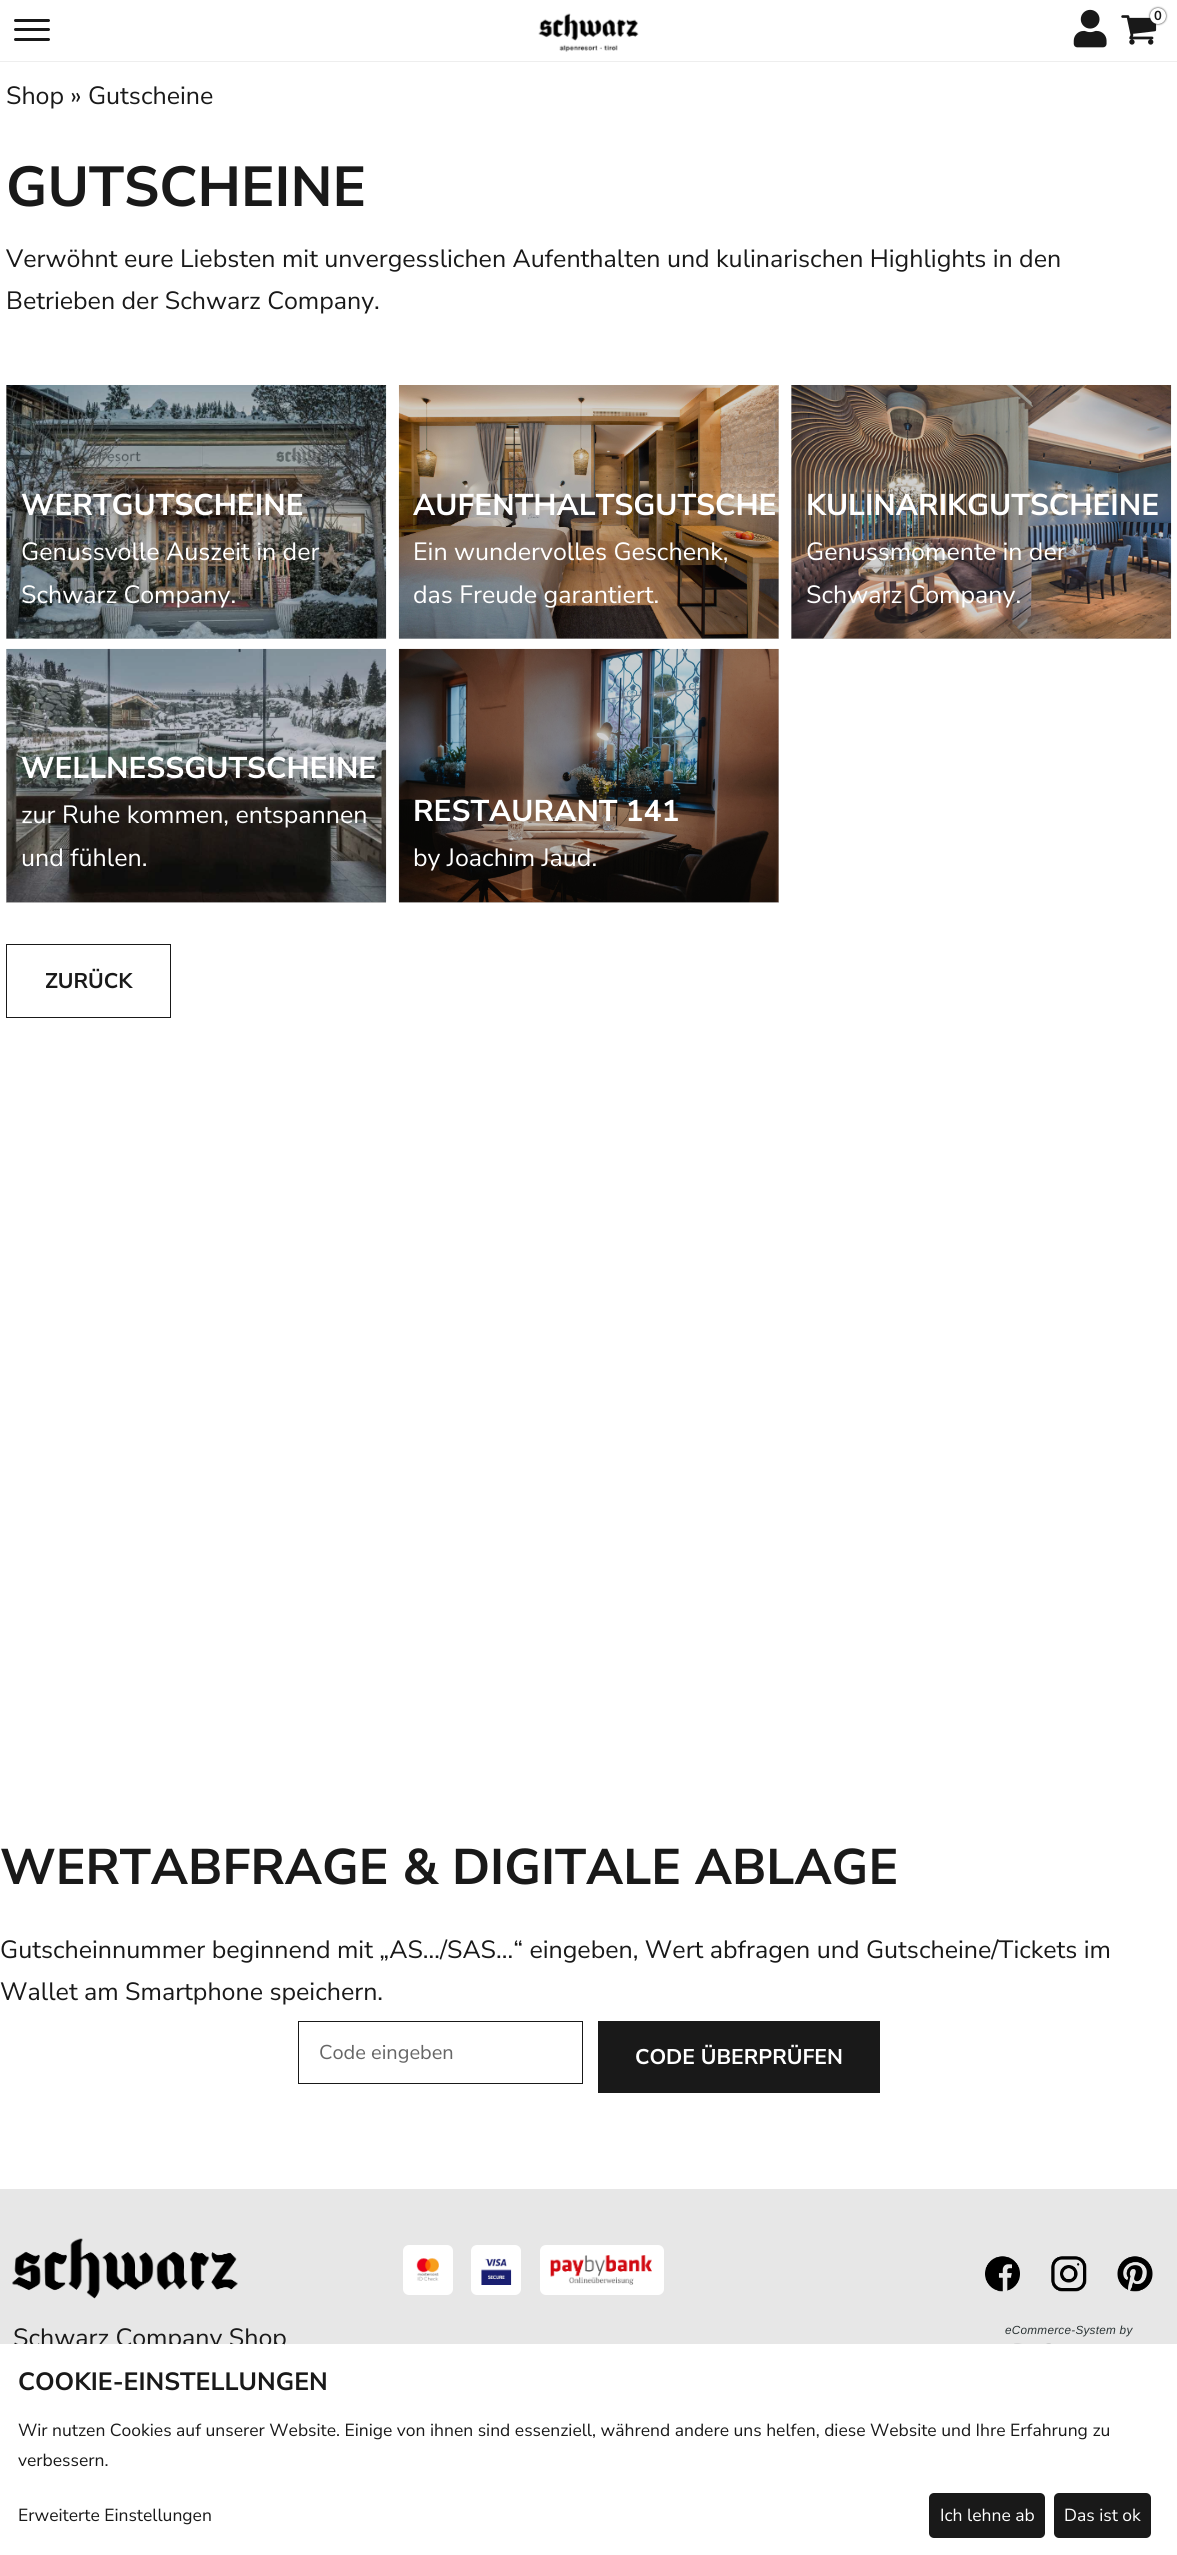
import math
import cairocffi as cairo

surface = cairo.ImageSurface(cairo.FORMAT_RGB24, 1177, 2555)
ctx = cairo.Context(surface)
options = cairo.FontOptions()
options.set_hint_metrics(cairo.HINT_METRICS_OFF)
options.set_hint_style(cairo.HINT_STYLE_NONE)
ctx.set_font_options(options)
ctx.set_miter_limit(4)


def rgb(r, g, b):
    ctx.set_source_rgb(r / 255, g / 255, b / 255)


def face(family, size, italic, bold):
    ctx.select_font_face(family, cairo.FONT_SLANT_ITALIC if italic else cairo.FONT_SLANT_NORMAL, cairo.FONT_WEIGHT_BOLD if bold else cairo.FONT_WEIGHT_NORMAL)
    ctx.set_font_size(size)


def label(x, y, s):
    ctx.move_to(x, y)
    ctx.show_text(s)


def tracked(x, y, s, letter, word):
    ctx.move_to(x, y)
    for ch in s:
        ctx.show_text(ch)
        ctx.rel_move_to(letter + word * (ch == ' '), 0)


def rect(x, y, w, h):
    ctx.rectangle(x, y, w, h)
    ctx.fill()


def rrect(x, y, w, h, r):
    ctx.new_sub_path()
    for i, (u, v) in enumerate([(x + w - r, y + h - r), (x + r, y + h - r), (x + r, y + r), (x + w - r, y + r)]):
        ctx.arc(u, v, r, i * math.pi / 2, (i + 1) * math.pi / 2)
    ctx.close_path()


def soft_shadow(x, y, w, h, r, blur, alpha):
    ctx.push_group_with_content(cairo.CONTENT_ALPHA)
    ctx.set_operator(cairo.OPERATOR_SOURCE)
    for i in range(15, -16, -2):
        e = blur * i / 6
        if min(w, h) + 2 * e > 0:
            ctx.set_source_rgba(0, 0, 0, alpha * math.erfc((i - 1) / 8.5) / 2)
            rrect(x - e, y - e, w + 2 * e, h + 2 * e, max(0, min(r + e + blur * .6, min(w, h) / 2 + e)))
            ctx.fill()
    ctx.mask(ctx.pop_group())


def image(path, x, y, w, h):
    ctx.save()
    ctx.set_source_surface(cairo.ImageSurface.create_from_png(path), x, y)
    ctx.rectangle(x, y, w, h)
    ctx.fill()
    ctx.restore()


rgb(255, 255, 255)
ctx.paint()
rgb(209, 209, 209)
rect(399, 649, 380, 254)
rect(6, 649, 380, 254)
rect(791, 385, 380, 254)
rect(399, 385, 380, 254)
rect(6, 385, 380, 254)
rgb(238, 238, 238)
rect(0, 61, 1177, 1)
image('image0.png', 538, 13, 101, 39)
image('image1.png', 1073, 9, 34, 39)
image('image2.png', 1121, 15, 36, 30)
rgb(25, 25, 25)
soft_shadow(1150, 8, 16, 16, 8, 1, 1)
rgb(255, 255, 255)
ctx.arc(1158, 16, 8, 0, 2 * math.pi)
ctx.fill()
face('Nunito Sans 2 ExtraLight', 13, 0, 0)
rgb(25, 25, 25)
label(1154, 20, '0')
rrect(14, 19, 36, 3, 1.5)
ctx.fill()
rrect(14, 28, 36, 3, 1.5)
ctx.fill()
rrect(14, 38, 36, 3, 1.5)
ctx.fill()
face('Nunito Sans ExtraLight', 25, 0, 0)
label(6, 104, 'Shop » Gutscheine')
face('Nunito Sans 2 ExtraLight', 56.25, 0, 0)
label(6, 206, 'GUTSCHEINE')
face('Nunito Sans ExtraLight', 25, 0, 0)
label(6, 267, 'Verwöhnt eure Liebsten mit unvergesslichen Aufenthalten und kulinarischen Highlights in den')
label(6, 309, 'Betrieben der Schwarz Company.')
image('image3.png', 6, 385, 381, 254)
face('Nunito Sans 2 ExtraLight', 30, 0, 0)
rgb(255, 255, 255)
label(21, 515, 'WERTGUTSCHEINE')
face('Nunito Sans ExtraLight', 25, 0, 0)
label(21, 560, 'Genussvolle Auszeit in der')
label(21, 603, 'Schwarz Company.')
image('image4.png', 398, 385, 381, 254)
face('Nunito Sans 2 ExtraLight', 30, 0, 0)
label(413, 515, 'AUFENTHALTSGUTSCHE')
face('Nunito Sans ExtraLight', 25, 0, 0)
label(413, 560, 'Ein wundervolles Geschenk,')
label(413, 603, 'das Freude garantiert.')
image('image5.png', 791, 385, 381, 254)
face('Nunito Sans 2 ExtraLight', 30, 0, 0)
label(806, 515, 'KULINARIKGUTSCHEINE')
face('Nunito Sans ExtraLight', 25, 0, 0)
label(806, 560, 'Genussmomente in der')
label(806, 603, 'Schwarz Company.')
image('image6.png', 6, 648, 381, 255)
face('Nunito Sans 2 ExtraLight', 30, 0, 0)
label(21, 778, 'WELLNESSGUTSCHEINE')
face('Nunito Sans ExtraLight', 25, 0, 0)
label(21, 823, 'zur Ruhe kommen, entspannen')
label(21, 866, 'und fühlen.')
image('image7.png', 398, 648, 381, 255)
face('Nunito Sans 2 ExtraLight', 30, 0, 0)
label(413, 821, 'RESTAURANT 141')
face('Nunito Sans ExtraLight', 25, 0, 0)
label(413, 866, 'by Joachim Jaud.')
ctx.rectangle(6.5, 944.5, 164, 73)
rgb(25, 25, 25)
ctx.set_line_width(1)
ctx.stroke()
face('Nunito Sans 2 ExtraLight', 21.25, 0, 0)
label(45, 988, 'ZURÜCK')
face('Nunito Sans 2 ExtraLight', 50, 0, 0)
label(0, 1884, 'WERTABFRAGE & DIGITALE ABLAGE')
face('Nunito Sans ExtraLight', 25, 0, 0)
label(0, 1958, 'Gutscheinnummer beginnend mit „AS…/SAS…“ eingeben, Wert abfragen und Gutscheine/Tickets im')
label(0, 2000, 'Wallet am Smartphone speichern.')
ctx.rectangle(298.5, 2021.5, 284, 62)
ctx.stroke()
face('Nunito Sans ExtraLight', 20, 0, 0)
rgb(102, 102, 102)
label(319, 2059, 'Code eingeben')
rgb(25, 25, 25)
rect(598, 2021, 282, 72)
face('Nunito Sans 2 ExtraLight', 21.25, 0, 0)
rgb(255, 255, 255)
label(635, 2064, 'CODE ÜBERPRÜFEN')
rgb(231, 231, 231)
rect(0, 2189, 1177, 155)
rgb(255, 255, 255)
rrect(403, 2245, 50, 50, 6)
ctx.fill()
rrect(471, 2245, 50, 50, 6)
ctx.fill()
rrect(540, 2245, 124, 50, 6)
ctx.fill()
image('image8.png', 416, 2258, 23, 23)
image('image9.png', 481, 2258, 31, 27)
image('image10.png', 550, 2255, 102, 30)
image('image11.png', 12, 2238, 226, 61)
face('Nunito Sans ExtraLight', 25, 0, 0)
rgb(25, 25, 25)
label(13, 2346, 'Schwarz Company Shop')
image('image12.png', 985, 2256, 35, 36)
image('image13.png', 1051, 2256, 36, 36)
image('image14.png', 1117, 2256, 36, 36)
face('Liberation Sans', 11.75, 1, 0)
rgb(43, 52, 53)
tracked(1005, 2334, 'eCommerce-System by', 0.25, 0)
image('image15.png', 1014, 2343, 37, 1)
rgb(255, 255, 255)
rect(13, 2344, 271, 7)
face('Nunito Sans 2 ExtraLight', 25, 0, 0)
rgb(25, 25, 25)
label(18, 2390, 'COOKIE-EINSTELLUNGEN')
face('Nunito Sans ExtraLight', 17.5, 0, 0)
label(18, 2436, 'Wir nutzen Cookies auf unserer Website. Einige von ihnen sind essenziell, während andere uns helfen, diese Website und Ihre Erfahrung zu')
label(18, 2466, 'verbessern.')
label(18, 2521, 'Erweiterte Einstellungen')
rrect(929, 2493, 116, 45, 5)
ctx.fill()
rgb(255, 255, 255)
label(940, 2521, 'Ich lehne ab')
rgb(25, 25, 25)
rrect(1054, 2493, 97, 45, 5)
ctx.fill()
rgb(255, 255, 255)
label(1064, 2521, 'Das ist ok')
surface.write_to_png('render.png')
